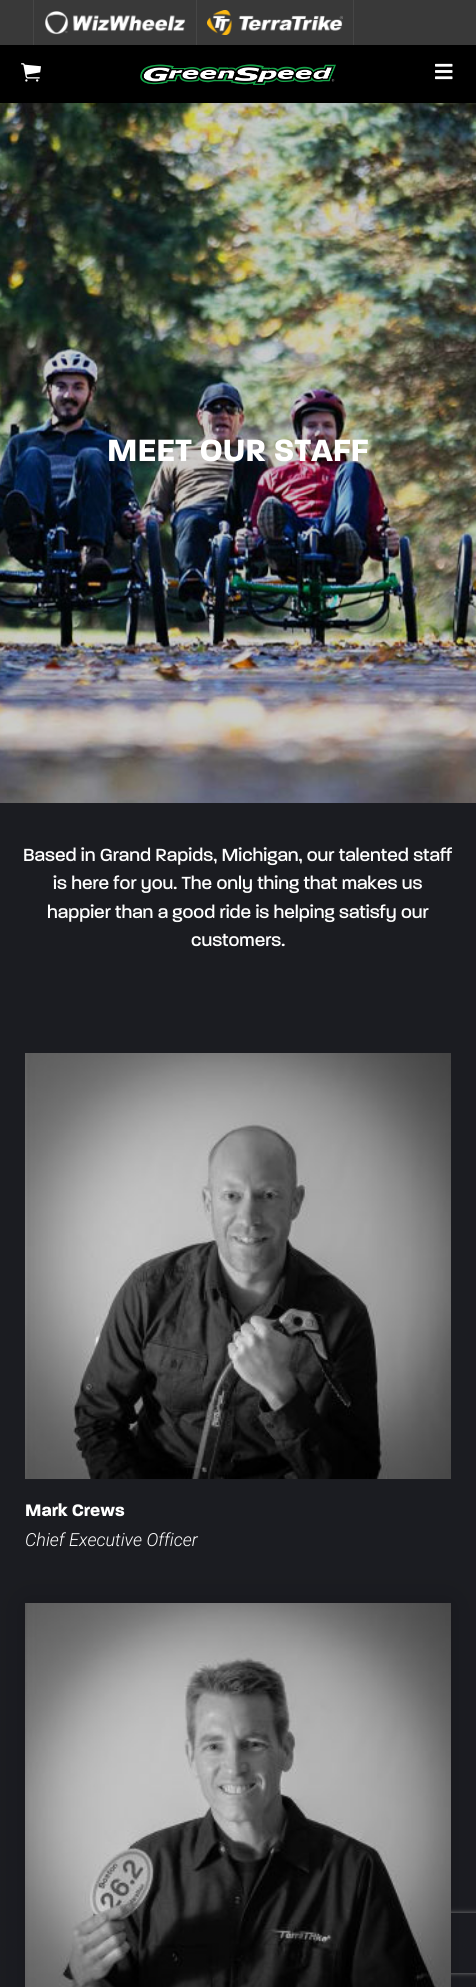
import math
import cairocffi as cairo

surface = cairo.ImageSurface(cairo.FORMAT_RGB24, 476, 1987)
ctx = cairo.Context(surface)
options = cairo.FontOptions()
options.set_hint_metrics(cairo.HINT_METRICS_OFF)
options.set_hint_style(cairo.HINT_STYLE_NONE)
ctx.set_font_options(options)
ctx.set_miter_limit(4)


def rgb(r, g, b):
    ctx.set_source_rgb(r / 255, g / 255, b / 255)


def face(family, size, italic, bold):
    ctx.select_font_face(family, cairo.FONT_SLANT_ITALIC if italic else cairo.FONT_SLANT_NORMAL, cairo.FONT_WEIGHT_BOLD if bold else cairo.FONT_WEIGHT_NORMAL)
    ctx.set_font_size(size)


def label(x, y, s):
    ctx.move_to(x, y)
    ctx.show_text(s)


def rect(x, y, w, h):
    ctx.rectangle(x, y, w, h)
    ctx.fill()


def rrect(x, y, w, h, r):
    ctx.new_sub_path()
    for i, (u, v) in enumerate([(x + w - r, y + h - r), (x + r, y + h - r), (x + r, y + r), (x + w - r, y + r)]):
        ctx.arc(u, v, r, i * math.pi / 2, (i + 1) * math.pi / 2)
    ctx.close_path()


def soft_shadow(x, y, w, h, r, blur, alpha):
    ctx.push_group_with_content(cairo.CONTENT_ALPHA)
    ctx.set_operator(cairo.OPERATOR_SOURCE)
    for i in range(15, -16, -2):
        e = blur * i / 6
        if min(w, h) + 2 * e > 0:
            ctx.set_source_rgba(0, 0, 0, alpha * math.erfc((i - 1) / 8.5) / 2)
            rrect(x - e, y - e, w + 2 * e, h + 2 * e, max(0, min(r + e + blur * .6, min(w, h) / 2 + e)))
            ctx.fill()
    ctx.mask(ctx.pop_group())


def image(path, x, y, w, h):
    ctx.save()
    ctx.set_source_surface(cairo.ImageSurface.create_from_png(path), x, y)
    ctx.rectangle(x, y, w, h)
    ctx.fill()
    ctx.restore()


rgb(27, 28, 33)
ctx.paint()
rgb(57, 57, 57)
rect(0, 0, 476, 45)
rgb(70, 70, 70)
rect(196, 0, 1, 45)
rect(33, 0, 1, 45)
image('image0.png', 45, 11, 141, 24)
rect(353, 0, 1, 45)
image('image1.png', 207, 10, 136, 25)
rgb(0, 0, 0)
rect(0, 45, 476, 58)
image('image2.png', 21, 63, 20, 19)
image('image3.png', 140, 64, 196, 21)
image('image4.png', 435, 63, 18, 17)
image('image5.png', 0, 103, 476, 700)
face('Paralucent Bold', 33.25, 0, 1)
rgb(255, 255, 255)
label(107, 461, 'MEET OUR STAFF')
face('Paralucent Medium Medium', 19, 0, 0)
label(23, 861, 'Based in Grand Rapids, Michigan, our talented staff')
label(53, 889, 'is here for you. The only thing that makes us')
label(47, 918, 'happier than a good ride is helping satisfy our')
label(191, 946, 'customers.')
image('image6.png', 25, 1053, 426, 426)
face('Paralucent Bold', 18, 0, 1)
label(25, 1516, 'Mark Crews')
face('Roboto Light', 18, 1, 0)
label(25, 1546, 'Chief Executive Officer')
rgb(0, 0, 0)
soft_shadow(25, 1603, 426, 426, 0, 16, 0.18)
ctx.save()
ctx.set_fill_rule(cairo.FILL_RULE_EVEN_ODD)
ctx.new_path()
ctx.move_to(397, 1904)
ctx.line_to(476, 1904)
ctx.line_to(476, 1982)
ctx.line_to(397, 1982)
ctx.close_path()
ctx.move_to(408, 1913)
ctx.line_to(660, 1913)
ctx.curve_to(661, 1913, 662, 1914, 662, 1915)
ctx.line_to(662, 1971)
ctx.curve_to(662, 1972, 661, 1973, 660, 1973)
ctx.line_to(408, 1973)
ctx.curve_to(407, 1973, 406, 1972, 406, 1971)
ctx.line_to(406, 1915)
ctx.curve_to(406, 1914, 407, 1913, 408, 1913)
ctx.close_path()
ctx.clip()
rgb(128, 128, 128)
soft_shadow(406, 1913, 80, 60, 2, 2.5, 1)
ctx.restore()
image('image7.png', 25, 1603, 426, 384)
surface.write_to_png('render.png')
